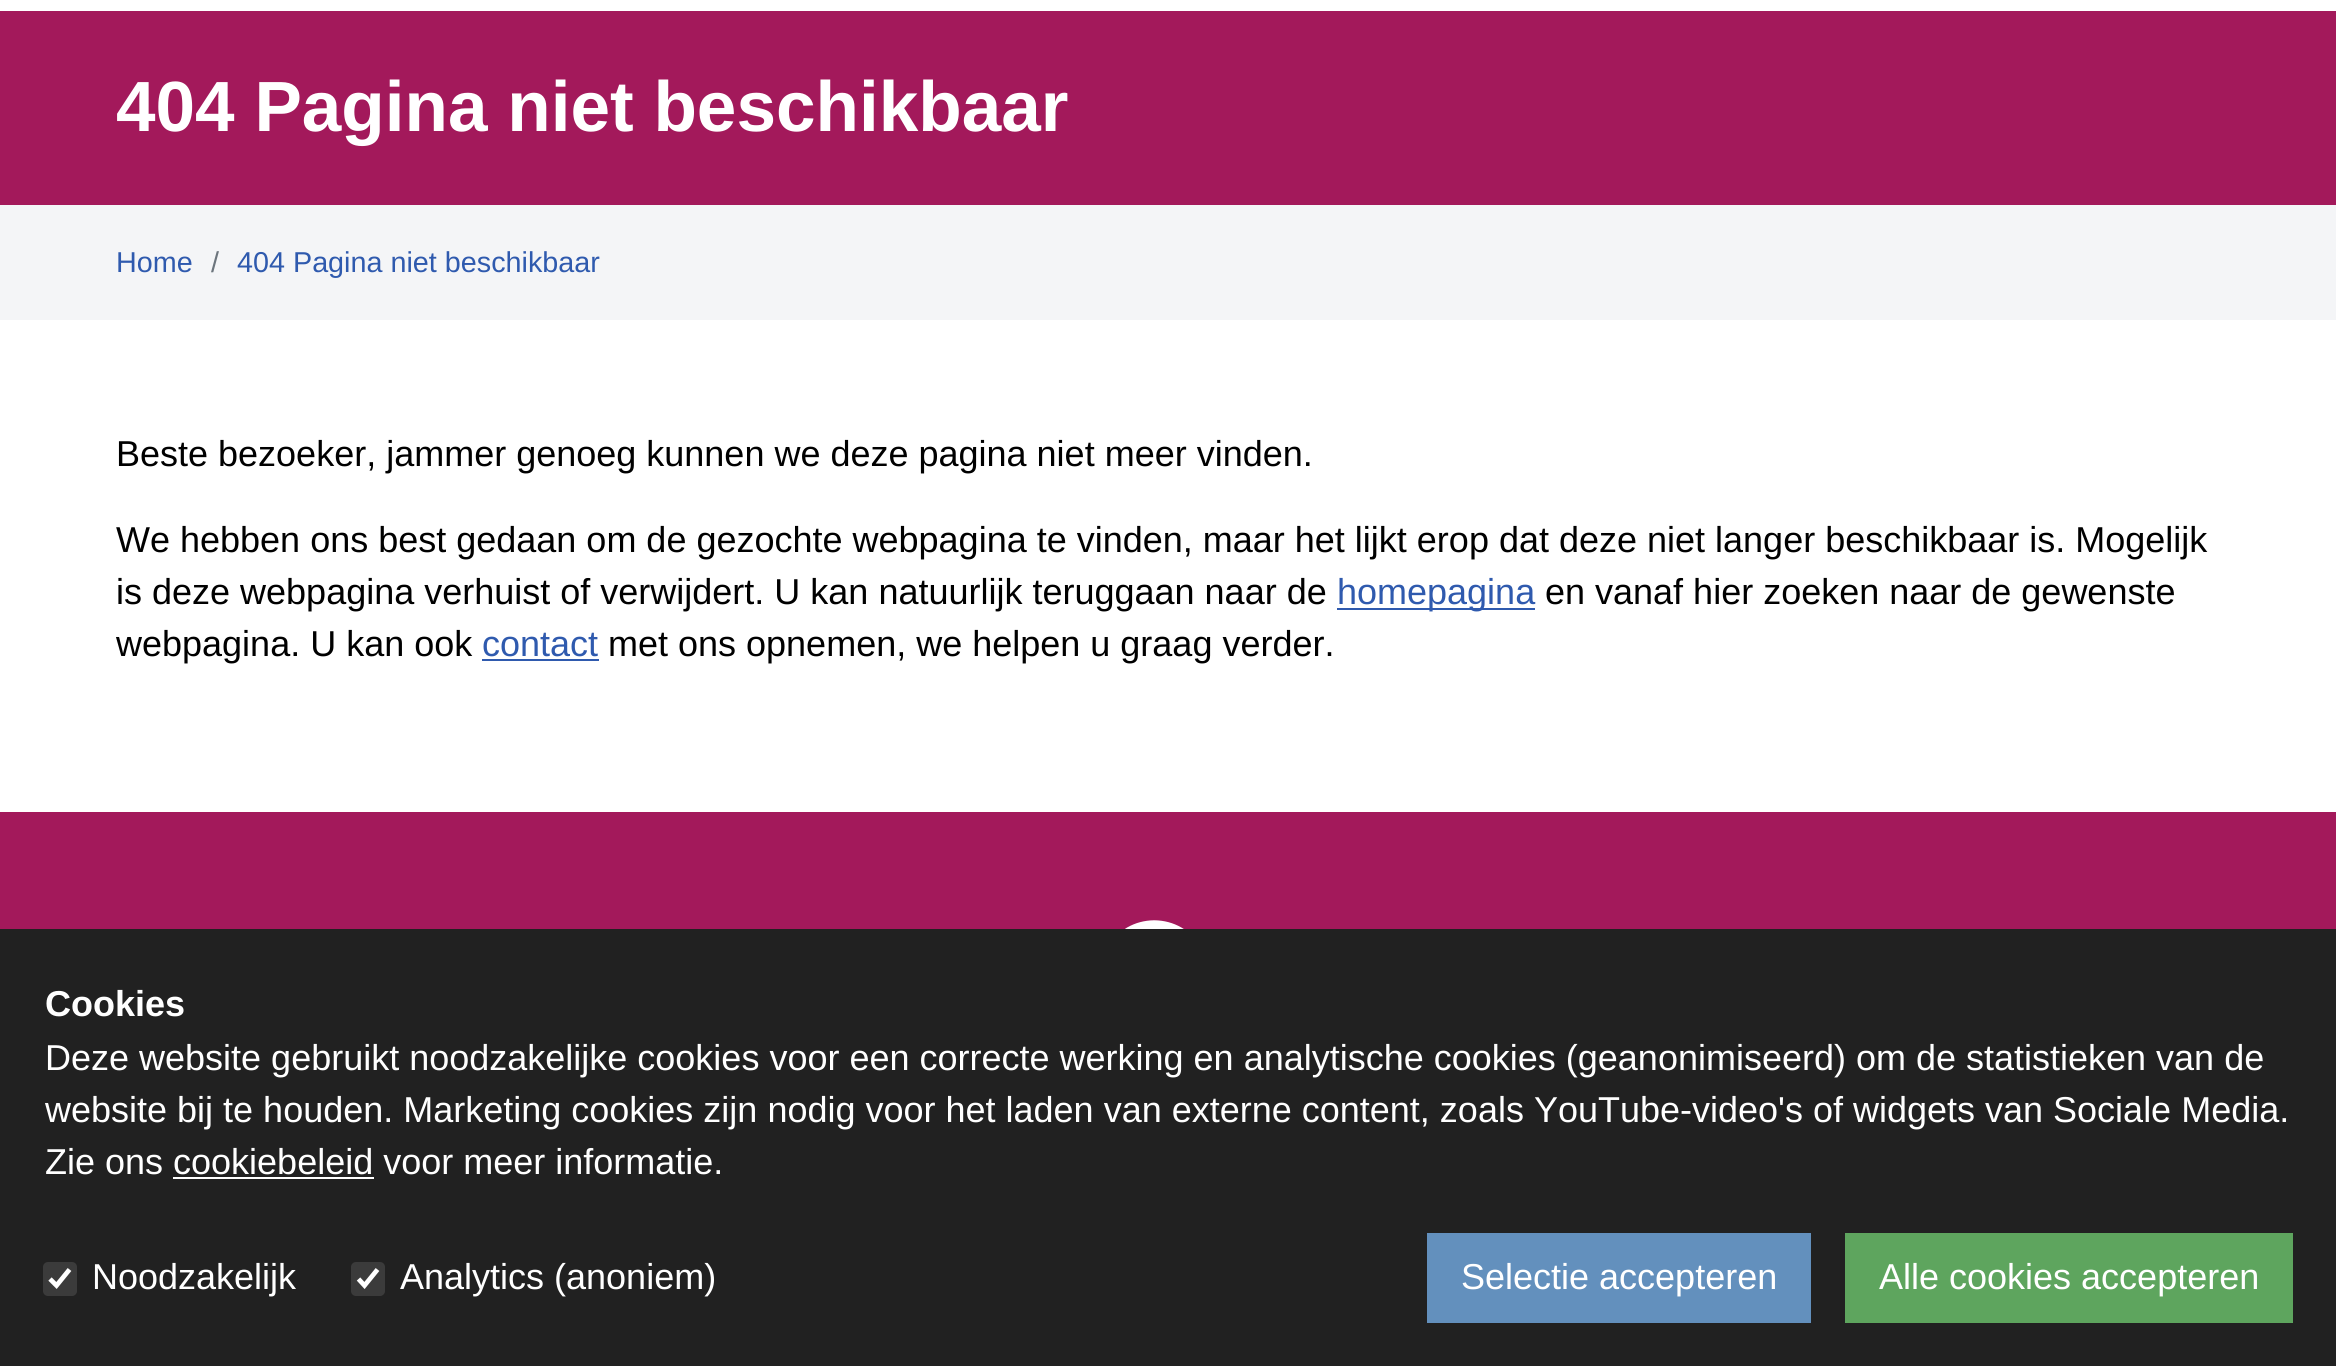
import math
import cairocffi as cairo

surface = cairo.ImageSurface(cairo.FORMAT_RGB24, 2336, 1366)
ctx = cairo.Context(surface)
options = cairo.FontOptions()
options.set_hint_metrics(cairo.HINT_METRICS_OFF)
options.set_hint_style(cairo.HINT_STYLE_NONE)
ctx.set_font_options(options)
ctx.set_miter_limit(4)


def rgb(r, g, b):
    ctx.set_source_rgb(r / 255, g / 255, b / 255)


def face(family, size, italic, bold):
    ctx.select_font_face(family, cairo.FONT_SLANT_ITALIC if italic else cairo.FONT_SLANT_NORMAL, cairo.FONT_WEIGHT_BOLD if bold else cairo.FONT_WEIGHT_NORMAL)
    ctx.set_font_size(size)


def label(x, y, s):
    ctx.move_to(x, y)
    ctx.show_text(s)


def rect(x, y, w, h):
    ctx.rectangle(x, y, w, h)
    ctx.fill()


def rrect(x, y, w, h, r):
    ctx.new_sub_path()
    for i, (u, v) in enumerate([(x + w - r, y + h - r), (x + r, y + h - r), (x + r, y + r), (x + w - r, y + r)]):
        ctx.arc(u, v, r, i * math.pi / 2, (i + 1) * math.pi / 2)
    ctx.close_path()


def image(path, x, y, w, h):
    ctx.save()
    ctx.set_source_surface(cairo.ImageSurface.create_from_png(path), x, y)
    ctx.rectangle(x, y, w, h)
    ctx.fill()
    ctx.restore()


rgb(255, 255, 255)
ctx.paint()
rgb(163, 25, 91)
rect(0, 11, 2336, 194)
face('Liberation Sans', 71.1, 0, 1)
rgb(255, 255, 255)
label(116, 131, '404 Pagina niet beschikbaar')
rgb(244, 245, 247)
rect(0, 205, 2336, 115)
face('Liberation Sans', 28.75, 0, 0)
rgb(47, 90, 174)
label(116, 272, 'Home')
rgb(108, 117, 125)
label(211, 272, '/')
rgb(47, 90, 174)
label(237, 272, '404 Pagina niet beschikbaar')
face('Liberation Sans', 36, 0, 0)
rgb(0, 0, 0)
label(116, 466, 'Beste bezoeker, jammer genoeg kunnen we deze pagina niet meer vinden.')
label(116, 552, 'We hebben ons best gedaan om de gezochte webpagina te vinden, maar het lijkt erop dat deze niet langer beschikbaar is. Mogelijk')
label(116, 604, 'is deze webpagina verhuist of verwijdert. U kan natuurlijk teruggaan naar de')
rgb(47, 90, 174)
rect(1337, 608, 198, 2)
label(1337, 604, 'homepagina')
rgb(0, 0, 0)
label(1545, 604, 'en vanaf hier zoeken naar de gewenste')
label(116, 656, 'webpagina. U kan ook')
rgb(47, 90, 174)
label(482, 656, 'contact')
rect(482, 659, 117, 2)
rgb(0, 0, 0)
label(608, 656, 'met ons opnemen, we helpen u graag verder.')
rgb(163, 25, 91)
rect(0, 812, 2336, 117)
image('image0.png', 1125, 920, 59, 9)
rgb(33, 33, 33)
rect(0, 929, 2336, 437)
face('Liberation Sans', 36, 0, 1)
rgb(255, 255, 255)
label(45, 1016, 'Cookies')
face('Liberation Sans', 36, 0, 0)
label(45, 1070, 'Deze website gebruikt noodzakelijke cookies voor een correcte werking en analytische cookies (geanonimiseerd) om de statistieken van de')
label(45, 1122, 'website bij te houden. Marketing cookies zijn nodig voor het laden van externe content, zoals YouTube-video\'s of widgets van Sociale Media.')
label(45, 1174, 'Zie ons cookiebeleid voor meer informatie.')
rect(173, 1177, 201, 2)
rgb(59, 59, 59)
rrect(43, 1262, 34, 34, 5)
ctx.fill()
ctx.new_path()
ctx.move_to(50, 1279)
ctx.line_to(56.5, 1285.5)
ctx.line_to(69.5, 1269.5)
rgb(255, 255, 255)
ctx.set_line_width(4.7)
ctx.stroke()
label(92, 1289, 'Noodzakelijk')
rgb(59, 59, 59)
rrect(351, 1262, 34, 34, 5)
ctx.fill()
ctx.new_path()
ctx.move_to(358.5, 1279)
ctx.line_to(364.5, 1285.5)
ctx.line_to(377.5, 1269.5)
rgb(255, 255, 255)
ctx.stroke()
label(400, 1289, 'Analytics (anoniem)')
rgb(99, 144, 189)
rect(1427, 1233, 384, 90)
rgb(255, 255, 255)
label(1461, 1289, 'Selectie accepteren')
rgb(94, 165, 94)
rect(1845, 1233, 448, 90)
rgb(255, 255, 255)
label(1879, 1289, 'Alle cookies accepteren')
surface.write_to_png('render.png')
